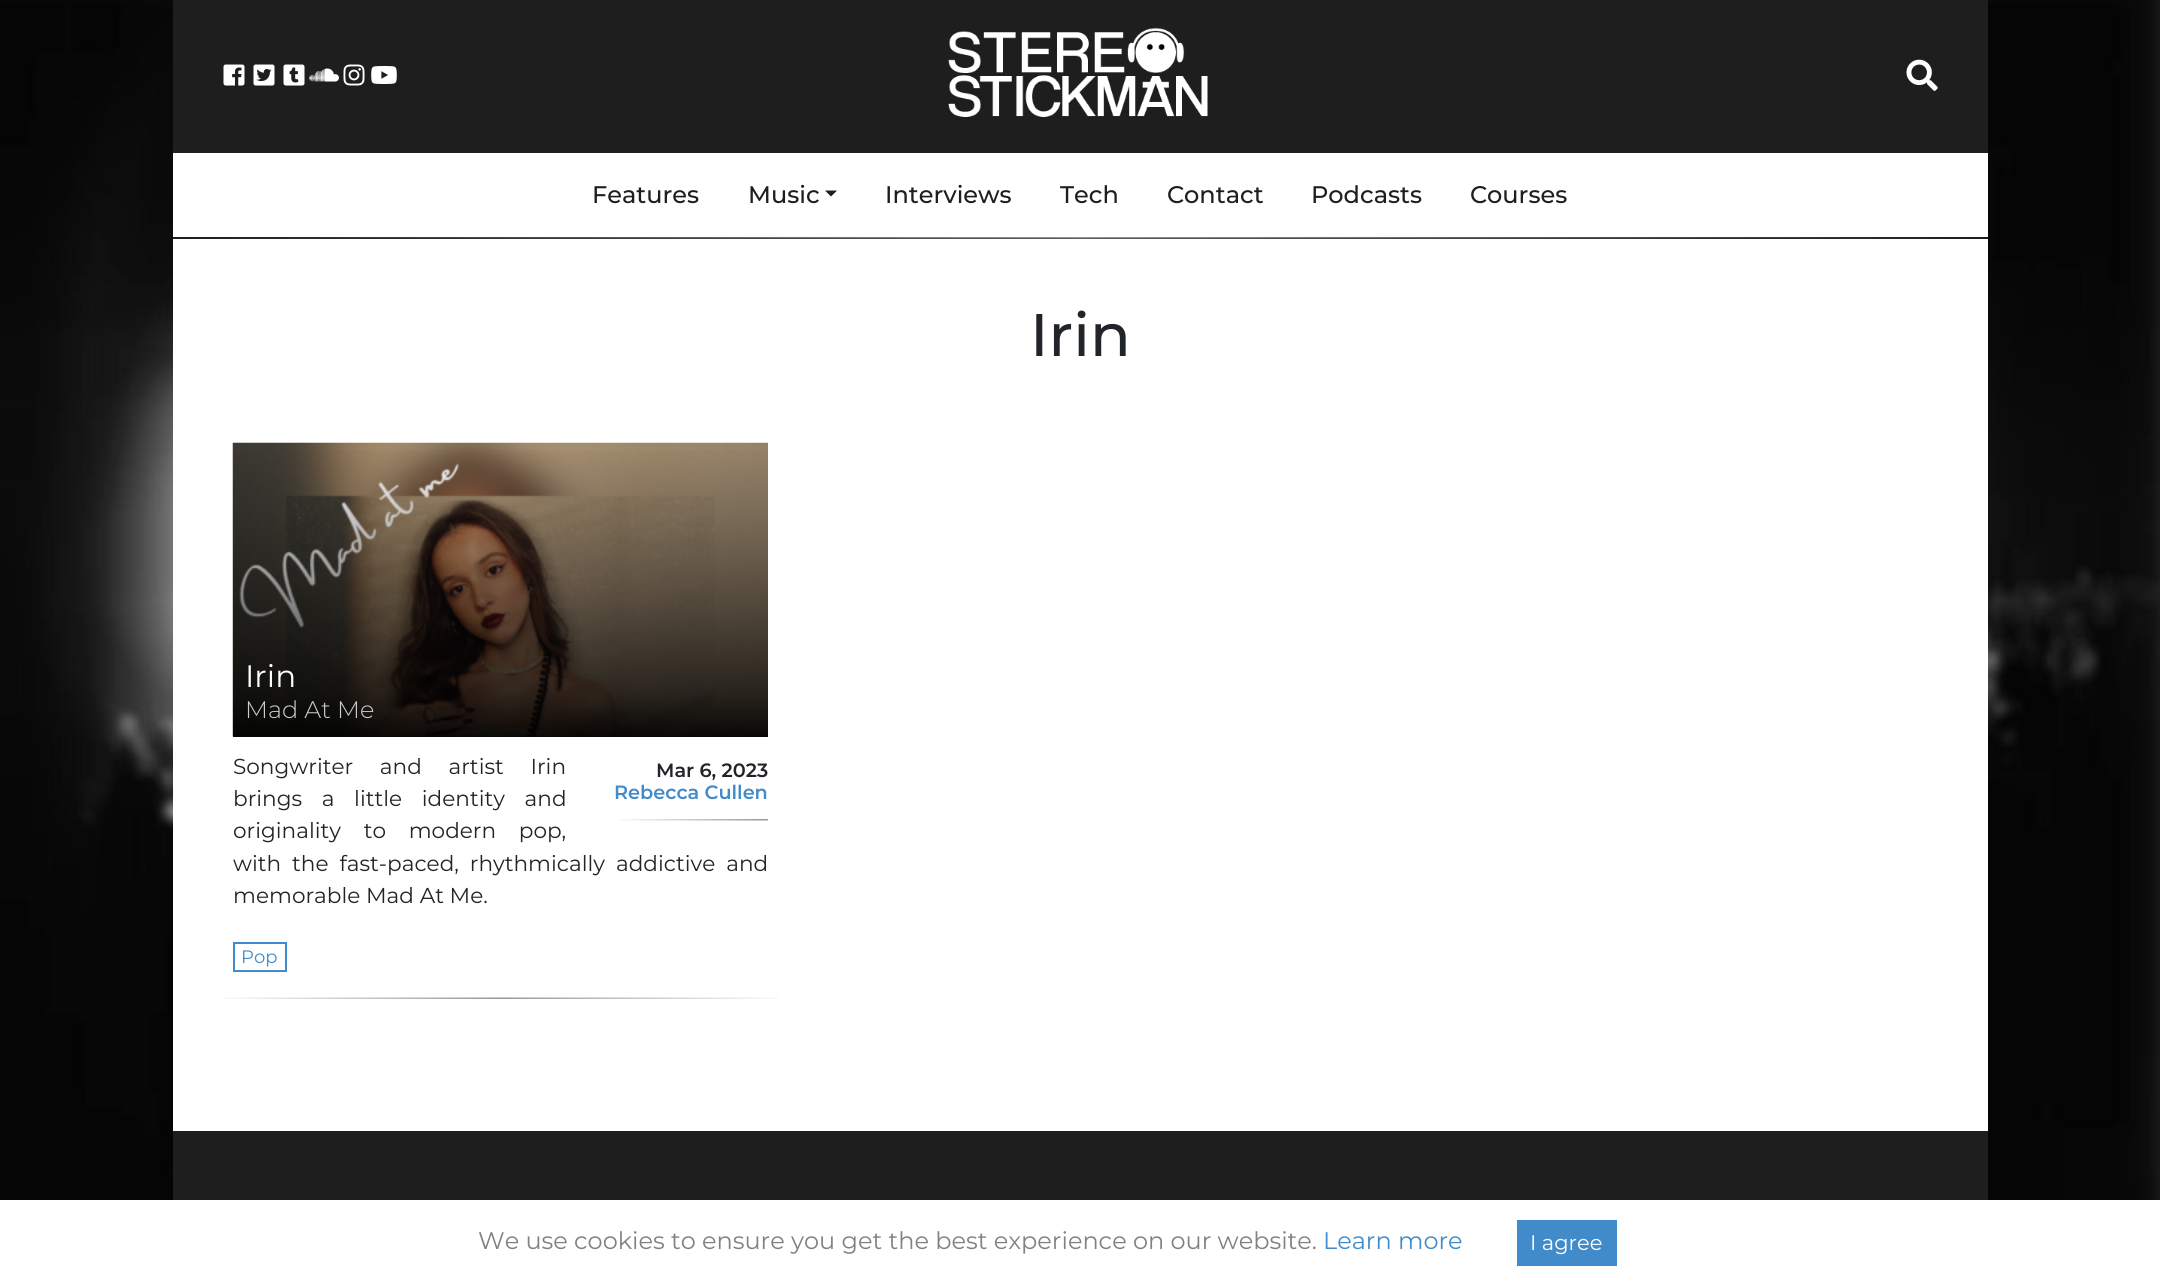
import math
import cairocffi as cairo

surface = cairo.ImageSurface(cairo.FORMAT_RGB24, 2160, 1285)
ctx = cairo.Context(surface)
options = cairo.FontOptions()
options.set_hint_metrics(cairo.HINT_METRICS_OFF)
options.set_hint_style(cairo.HINT_STYLE_NONE)
ctx.set_font_options(options)
ctx.set_miter_limit(4)


def rgb(r, g, b):
    ctx.set_source_rgb(r / 255, g / 255, b / 255)


def face(family, size, italic, bold):
    ctx.select_font_face(family, cairo.FONT_SLANT_ITALIC if italic else cairo.FONT_SLANT_NORMAL, cairo.FONT_WEIGHT_BOLD if bold else cairo.FONT_WEIGHT_NORMAL)
    ctx.set_font_size(size)


def label(x, y, s):
    ctx.move_to(x, y)
    ctx.show_text(s)


def tracked(x, y, s, letter, word):
    ctx.move_to(x, y)
    for ch in s:
        ctx.show_text(ch)
        ctx.rel_move_to(letter + word * (ch == ' '), 0)


def rect(x, y, w, h):
    ctx.rectangle(x, y, w, h)
    ctx.fill()


def image(path, x, y, w, h):
    ctx.save()
    ctx.set_source_surface(cairo.ImageSurface.create_from_png(path), x, y)
    ctx.rectangle(x, y, w, h)
    ctx.fill()
    ctx.restore()


rgb(255, 255, 255)
ctx.paint()
image('image0.png', 0, 0, 2160, 1200)
rgb(255, 255, 255)
rect(173, 239, 1815, 892)
rgb(30, 30, 30)
rect(173, 0, 1815, 239)
image('image1.png', 223, 64, 22, 22)
image('image2.png', 253, 64, 22, 22)
image('image3.png', 283, 64, 22, 22)
image('image4.png', 309, 68, 30, 14)
image('image5.png', 343, 64, 22, 22)
image('image6.png', 371, 66, 26, 18)
image('image7.png', 948, 27, 260, 90)
image('image8.png', 1906, 59, 32, 32)
rgb(255, 255, 255)
rect(173, 153, 1815, 84)
image('image9.png', 198, 237, 1764, 2)
face('Montserrat Medium', 24, 0, 0)
rgb(30, 30, 30)
label(592, 203, 'Features')
label(748, 203, 'Music')
ctx.new_path()
ctx.move_to(825, 190.5)
ctx.line_to(837, 190.5)
ctx.line_to(831, 196.5)
ctx.close_path()
ctx.fill()
label(885, 203, 'Interviews')
label(1060, 203, 'Tech')
label(1167, 203, 'Contact')
label(1311, 203, 'Podcasts')
label(1470, 203, 'Courses')
face('Montserrat Medium', 60, 0, 0)
rgb(33, 37, 41)
label(1030, 356, 'Irin')
image('image10.png', 221, 997, 559, 2)
gradient = cairo.LinearGradient(500, 443, 500, 737)
gradient.add_color_stop_rgba(0, 1, 1, 1, 1)
gradient.add_color_stop_rgba(1, 0.349, 0.349, 0.349, 1)
ctx.set_source(gradient)
rect(233, 736, 535, 1)
image('image11.png', 232, 442, 536, 295)
gradient = cairo.LinearGradient(500, 443, 500, 737)
gradient.add_color_stop_rgba(0, 0, 0, 0, 0)
gradient.add_color_stop_rgba(0.85, 0, 0, 0, 0.74)
gradient.add_color_stop_rgba(1, 0, 0, 0, 0.94)
ctx.set_source(gradient)
rect(233, 450, 535, 287)
face('Montserrat', 31, 0, 0)
rgb(255, 255, 255)
label(245, 687, 'Irin')
face('Montserrat Light', 24, 0, 0)
rgb(204, 204, 204)
label(245, 718, 'Mad At Me')
face('Montserrat', 21.6, 0, 0)
rgb(33, 37, 41)
tracked(233, 774, 'Songwriter and artist Irin', 0, 21)
tracked(233, 806, 'brings a little identity and', 0, 14)
tracked(233, 838, 'originality to modern pop,', 0, 17)
tracked(233, 871, 'with the fast-paced, rhythmically addictive and', 0, 5.25)
label(233, 903, 'memorable Mad At Me.')
image('image12.png', 618, 819, 150, 2)
face('Montserrat SemiBold', 19.25, 0, 0)
label(656, 777, 'Mar 6, 2023')
rgb(66, 139, 202)
label(614, 799, 'Rebecca Cullen')
ctx.rectangle(234, 943, 52, 28)
ctx.stroke()
face('Montserrat', 18, 0, 0)
label(241, 963, 'Pop')
rgb(30, 30, 30)
rect(173, 1131, 1815, 69)
face('Montserrat', 24, 0, 0)
rgb(129, 129, 130)
label(478, 1249, 'We use cookies to ensure you get the best experience on our website.')
rgb(66, 139, 202)
label(1323, 1249, 'Learn more')
rect(1517, 1220, 100, 46)
face('Montserrat', 21, 0, 0)
rgb(255, 255, 255)
label(1530, 1250, 'I agree')
surface.write_to_png('render.png')
